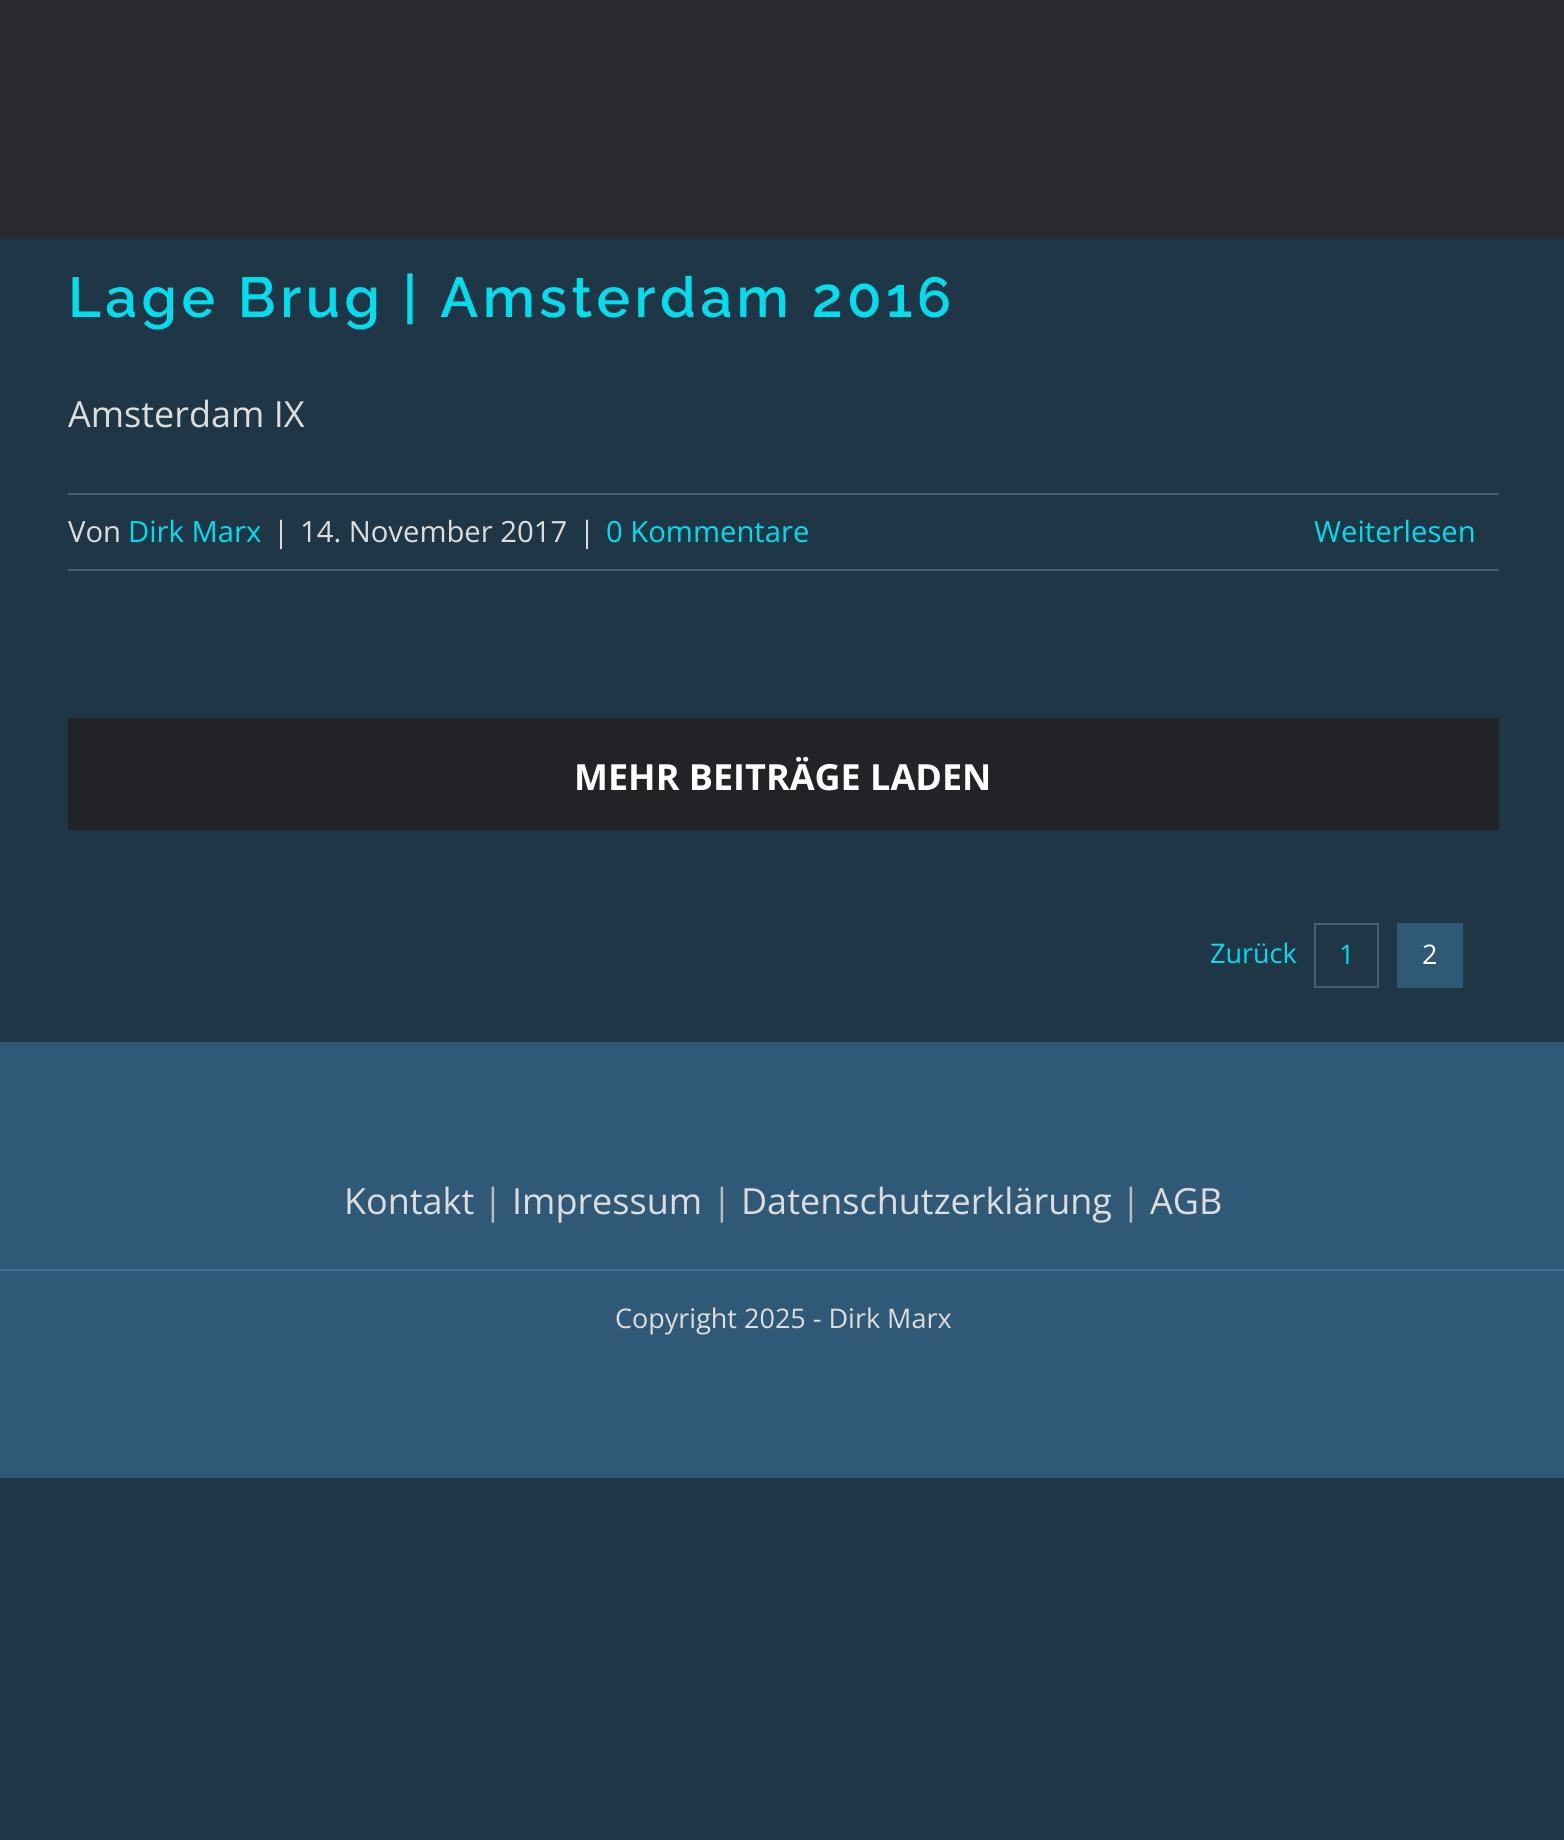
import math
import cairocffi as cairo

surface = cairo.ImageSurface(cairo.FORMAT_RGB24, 1564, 1840)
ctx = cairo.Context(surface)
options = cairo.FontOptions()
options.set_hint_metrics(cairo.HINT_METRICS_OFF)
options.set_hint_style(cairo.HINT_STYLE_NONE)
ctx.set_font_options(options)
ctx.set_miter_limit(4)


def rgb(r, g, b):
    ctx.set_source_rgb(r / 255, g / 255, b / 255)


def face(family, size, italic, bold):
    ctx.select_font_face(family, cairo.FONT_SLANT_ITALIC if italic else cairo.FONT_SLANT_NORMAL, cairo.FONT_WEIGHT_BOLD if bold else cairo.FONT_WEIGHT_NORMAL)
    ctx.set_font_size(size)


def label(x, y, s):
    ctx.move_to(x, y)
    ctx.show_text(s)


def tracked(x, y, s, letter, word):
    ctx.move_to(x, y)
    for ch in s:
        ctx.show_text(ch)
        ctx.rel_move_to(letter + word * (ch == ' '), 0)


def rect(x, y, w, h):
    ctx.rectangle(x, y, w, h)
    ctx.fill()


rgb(31, 54, 71)
ctx.paint()
rgb(40, 42, 45)
rect(0, 0, 1564, 239)
face('Raleway SemiBold', 56.25, 0, 0)
rgb(0, 221, 237)
tracked(68, 317, 'Lage Brug | Amsterdam 2016', 4.5, 0)
face('Open Sans', 36, 0, 0)
rgb(221, 221, 221)
label(68, 427, 'Amsterdam IX')
rgb(76, 94, 108)
rect(68, 493, 1431, 2)
rect(68, 569, 1431, 2)
face('Open Sans', 29.25, 0, 0)
rgb(221, 221, 221)
label(68, 542, 'Von')
rgb(0, 221, 237)
label(128, 542, 'Dirk Marx')
rgb(221, 221, 221)
label(273, 542, '|')
label(300, 542, '14. November 2017')
label(579, 542, '|')
rgb(0, 221, 237)
label(606, 542, '0 Kommentare')
label(1314, 542, 'Weiterlesen')
rgb(33, 35, 38)
rect(68, 718, 1431, 112)
face('Open Sans', 36, 0, 1)
rgb(255, 255, 255)
label(574, 790, 'MEHR BEITRÄGE LADEN')
face('Open Sans', 27, 0, 0)
rgb(0, 221, 237)
label(1210, 963, 'Zurück')
ctx.rectangle(1315, 924, 63, 63)
rgb(76, 94, 108)
ctx.stroke()
rgb(0, 221, 237)
label(1339, 964, '1')
rgb(47, 89, 119)
rect(1397, 923, 66, 65)
rgb(255, 255, 255)
label(1422, 964, '2')
rgb(47, 89, 119)
rect(0, 1042, 1564, 227)
face('Open Sans', 36, 0, 0)
rgb(221, 221, 221)
label(344, 1214, 'Kontakt')
rgb(187, 187, 187)
label(483, 1214, '|')
rgb(221, 221, 221)
label(512, 1214, 'Impressum')
rgb(187, 187, 187)
label(712, 1214, '|')
rgb(221, 221, 221)
label(741, 1214, 'Datenschutzerklärung')
rgb(187, 187, 187)
label(1121, 1214, '|')
rgb(221, 221, 221)
label(1150, 1214, 'AGB')
rgb(47, 89, 119)
rect(0, 1271, 1564, 207)
rgb(61, 112, 148)
rect(0, 1269, 1564, 2)
face('Open Sans', 27, 0, 0)
rgb(221, 221, 221)
label(615, 1328, 'Copyright 2025 - Dirk Marx')
surface.write_to_png('render.png')
